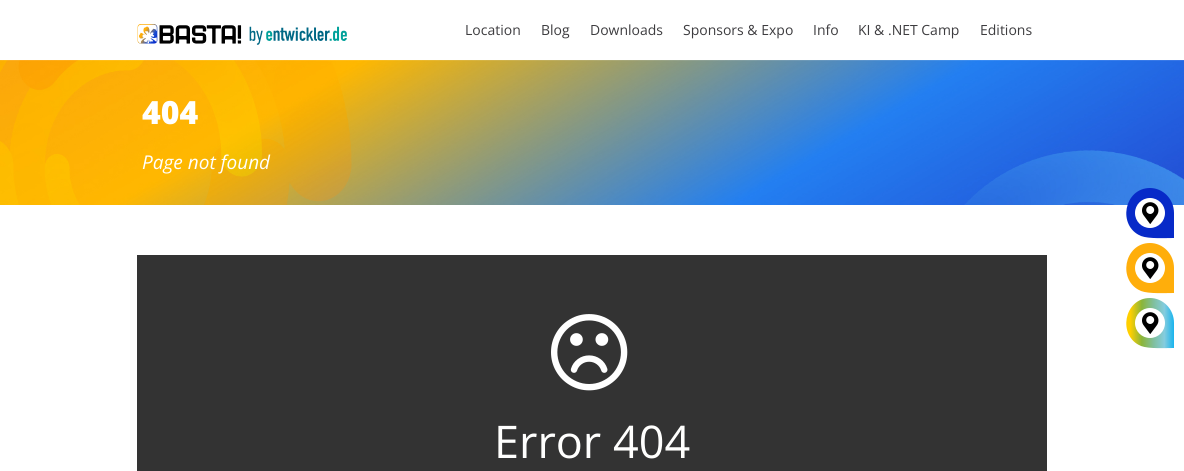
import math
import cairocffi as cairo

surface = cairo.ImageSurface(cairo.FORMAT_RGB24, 1184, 471)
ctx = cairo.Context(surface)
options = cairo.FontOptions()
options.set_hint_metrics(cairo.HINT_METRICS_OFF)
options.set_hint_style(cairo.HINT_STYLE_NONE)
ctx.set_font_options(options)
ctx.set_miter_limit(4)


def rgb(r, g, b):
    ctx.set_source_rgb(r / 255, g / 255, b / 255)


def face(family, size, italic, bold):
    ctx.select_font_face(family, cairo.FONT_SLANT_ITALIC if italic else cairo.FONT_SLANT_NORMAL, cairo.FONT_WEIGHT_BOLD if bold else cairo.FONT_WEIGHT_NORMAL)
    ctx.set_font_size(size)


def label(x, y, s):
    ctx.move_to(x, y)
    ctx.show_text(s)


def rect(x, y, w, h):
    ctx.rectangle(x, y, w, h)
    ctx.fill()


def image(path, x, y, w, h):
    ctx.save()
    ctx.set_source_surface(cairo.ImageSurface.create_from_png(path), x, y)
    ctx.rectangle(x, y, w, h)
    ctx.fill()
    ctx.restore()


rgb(255, 255, 255)
ctx.paint()
image('image0.png', 137, 24, 210, 21)
face('Open Sans', 14, 0, 0)
rgb(61, 60, 63)
label(465, 35, 'Location')
label(541, 35, 'Blog')
label(590, 35, 'Downloads')
label(683, 35, 'Sponsors & Expo')
label(813, 35, 'Info')
label(858, 35, 'KI & .NET Camp')
label(980, 35, 'Editions')
image('image1.png', 0, 60, 1184, 145)
face('Open Sans ExtraBold', 32, 0, 0)
rgb(255, 255, 254)
label(142, 124, '404')
face('Open Sans', 19, 1, 0)
label(142, 169, 'Page not found')
rgb(7, 42, 200)
ctx.new_path()
ctx.move_to(1150, 188)
ctx.curve_to(1163, 188, 1174, 199, 1174, 213)
ctx.line_to(1174, 238)
ctx.curve_to(1165, 238, 1149, 239, 1141, 236)
ctx.curve_to(1117, 226, 1124, 188, 1150, 188)
ctx.close_path()
ctx.fill()
rgb(255, 255, 255)
ctx.arc(1150, 213, 15, 0, 2 * math.pi)
ctx.fill()
image('image2.png', 1142, 202, 17, 22)
rgb(255, 174, 11)
ctx.new_path()
ctx.move_to(1150, 243)
ctx.curve_to(1163, 243, 1174, 254, 1174, 268)
ctx.line_to(1174, 293)
ctx.curve_to(1165, 293, 1149, 294, 1141, 291)
ctx.curve_to(1117, 281, 1124, 243, 1150, 243)
ctx.close_path()
ctx.fill()
rgb(255, 255, 255)
ctx.arc(1150, 268, 15, 0, 2 * math.pi)
ctx.fill()
image('image2.png', 1142, 257, 17, 22)
gradient = cairo.LinearGradient(1126, 323, 1174, 323)
gradient.add_color_stop_rgba(0.09, 1, 0.812, 0, 1)
gradient.add_color_stop_rgba(0.33, 0.541, 0.71, 0.227, 1)
gradient.add_color_stop_rgba(0.57, 0.502, 0.749, 0.612, 1)
gradient.add_color_stop_rgba(0.8, 0.518, 0.8, 0.871, 1)
gradient.add_color_stop_rgba(1, 0.094, 0.706, 0.933, 1)
ctx.set_source(gradient)
ctx.new_path()
ctx.move_to(1150, 298)
ctx.curve_to(1163, 298, 1174, 309, 1174, 323)
ctx.line_to(1174, 348)
ctx.curve_to(1165, 348, 1149, 349, 1141, 346)
ctx.curve_to(1117, 336, 1124, 298, 1150, 298)
ctx.close_path()
ctx.fill()
rgb(255, 255, 255)
ctx.arc(1150, 323, 15, 0, 2 * math.pi)
ctx.fill()
image('image2.png', 1142, 312, 17, 22)
rgb(51, 51, 51)
rect(137, 255, 910, 216)
image('image3.png', 551, 314, 77, 77)
face('Open Sans', 45, 0, 0)
rgb(255, 255, 254)
label(494, 458, 'Error 404')
surface.write_to_png('render.png')
